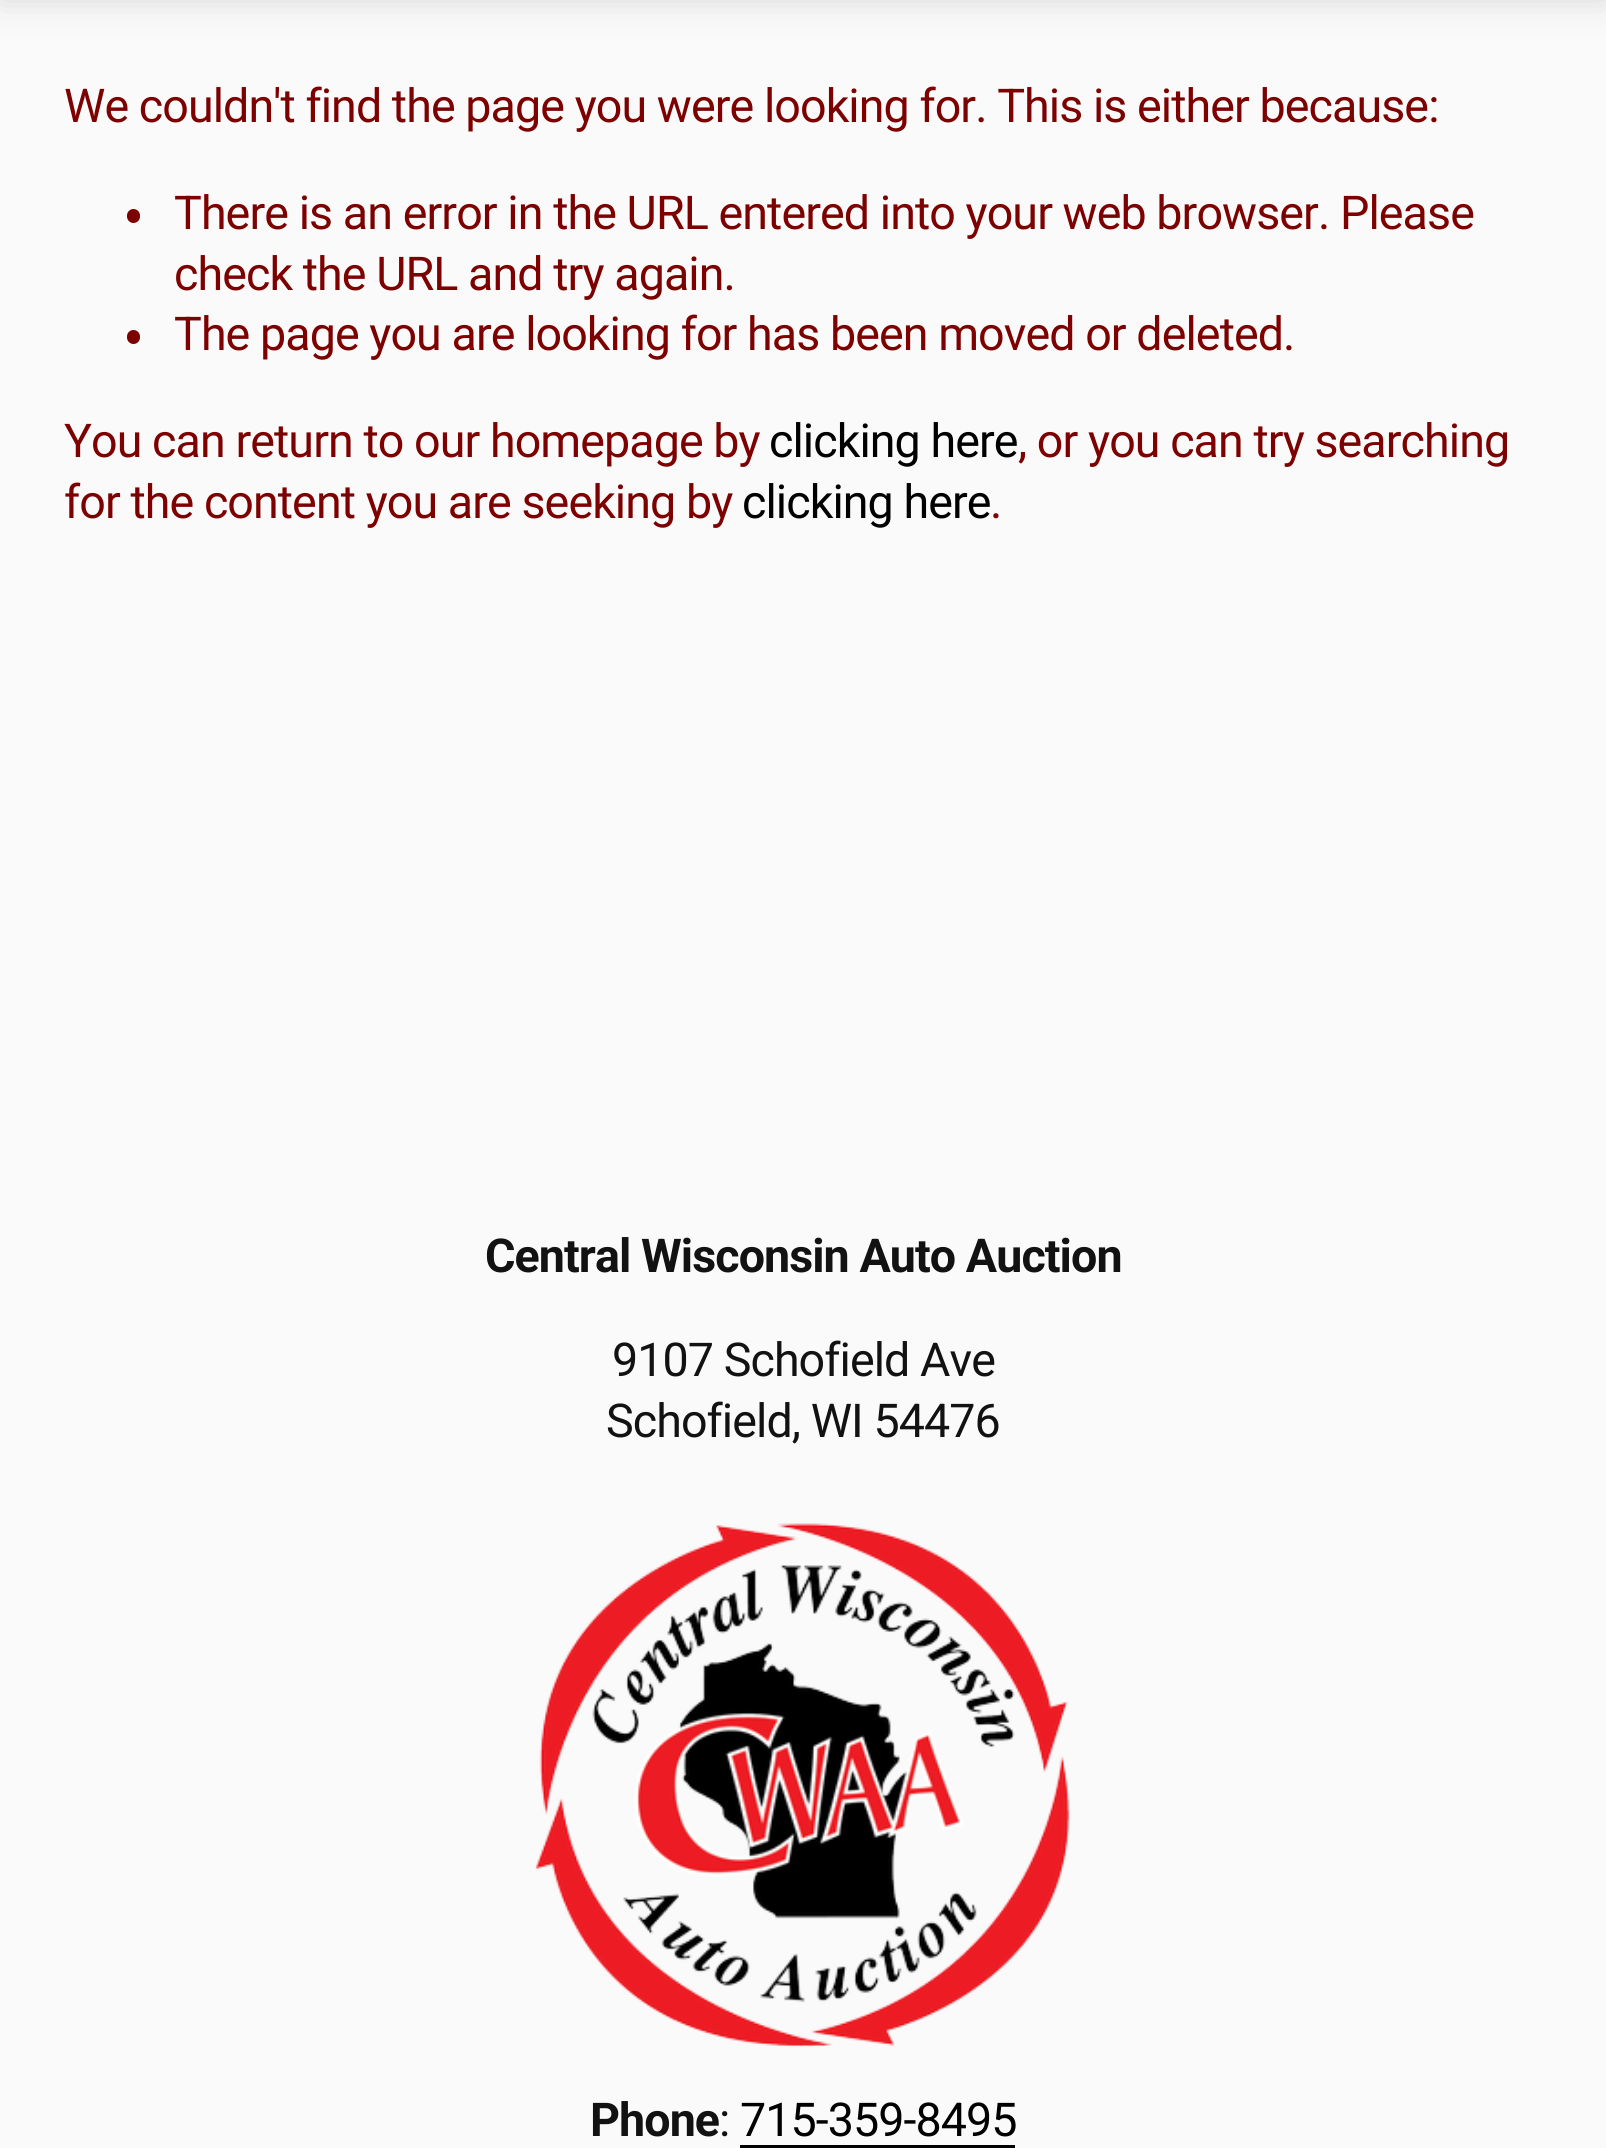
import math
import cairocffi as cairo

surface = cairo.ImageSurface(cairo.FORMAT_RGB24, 1606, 2148)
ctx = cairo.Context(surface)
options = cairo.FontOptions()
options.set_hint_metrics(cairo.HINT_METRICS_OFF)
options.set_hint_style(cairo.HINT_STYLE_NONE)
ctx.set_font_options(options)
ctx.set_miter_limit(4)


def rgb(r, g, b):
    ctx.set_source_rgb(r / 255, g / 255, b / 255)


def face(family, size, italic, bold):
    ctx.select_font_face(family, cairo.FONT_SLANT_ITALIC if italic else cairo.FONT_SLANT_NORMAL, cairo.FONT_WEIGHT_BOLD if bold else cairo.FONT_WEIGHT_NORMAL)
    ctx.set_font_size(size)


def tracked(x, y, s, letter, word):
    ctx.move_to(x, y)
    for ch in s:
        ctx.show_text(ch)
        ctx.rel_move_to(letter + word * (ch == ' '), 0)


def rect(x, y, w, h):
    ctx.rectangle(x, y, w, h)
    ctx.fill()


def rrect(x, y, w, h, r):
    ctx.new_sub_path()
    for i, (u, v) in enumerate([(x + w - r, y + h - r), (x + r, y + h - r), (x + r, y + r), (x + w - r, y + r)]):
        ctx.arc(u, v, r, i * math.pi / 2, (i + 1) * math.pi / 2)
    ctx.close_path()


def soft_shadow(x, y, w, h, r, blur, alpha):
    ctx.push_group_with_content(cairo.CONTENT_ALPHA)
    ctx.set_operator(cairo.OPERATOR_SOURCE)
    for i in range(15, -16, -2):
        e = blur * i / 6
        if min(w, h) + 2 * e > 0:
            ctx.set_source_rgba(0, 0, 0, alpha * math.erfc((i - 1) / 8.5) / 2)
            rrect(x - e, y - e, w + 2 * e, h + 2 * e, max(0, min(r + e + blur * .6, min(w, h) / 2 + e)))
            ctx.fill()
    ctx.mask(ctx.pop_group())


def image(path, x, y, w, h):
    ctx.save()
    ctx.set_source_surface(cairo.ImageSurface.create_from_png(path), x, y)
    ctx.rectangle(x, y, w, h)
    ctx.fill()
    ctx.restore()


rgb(250, 250, 250)
ctx.paint()
rgb(215, 215, 215)
soft_shadow(0, -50, 1606, 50, 0, 16.5, 1)
face('Roboto', 46.6, 0, 0)
rgb(125, 1, 1)
tracked(64, 122, 'We couldn\'t find the page you were looking for. This is either because:', -0.93, 0)
rrect(127, 209, 13, 14, 6.5)
ctx.fill()
tracked(174, 229, 'There is an error in the URL entered into your web browser. Please', -0.93, 0)
tracked(174, 290, 'check the URL and try again.', -0.93, 0)
rrect(127, 330, 13, 14, 6.5)
ctx.fill()
tracked(174, 350, 'The page you are looking for has been moved or deleted.', -0.93, 0)
tracked(64, 457, 'You can return to our homepage by', -0.93, 0)
rgb(0, 0, 0)
tracked(769, 457, 'clicking here', -0.93, 0)
rgb(125, 1, 1)
tracked(1018, 457, ', or you can try searching', -0.93, 0)
tracked(64, 518, 'for the content you are seeking by', -0.93, 0)
rgb(0, 0, 0)
tracked(742, 518, 'clicking here', -0.93, 0)
rgb(125, 1, 1)
tracked(990, 518, '.', -0.93, 0)
face('Roboto', 46.6, 0, 1)
rgb(19, 18, 18)
tracked(485, 1272, 'Central Wisconsin Auto Auction', -0.93, 0)
face('Roboto', 46.6, 0, 0)
tracked(612, 1376, '9107 Schofield Ave', -0.93, 0)
tracked(606, 1437, 'Schofield, WI 54476', -0.93, 0)
image('image0.png', 535, 1523, 535, 525)
face('Roboto', 46.6, 0, 1)
tracked(590, 2136, 'Phone', -0.93, 0)
face('Roboto', 46.6, 0, 0)
tracked(719, 2136, ':', -0.93, 0)
rgb(0, 0, 0)
tracked(740, 2136, '715-359-8495', -0.93, 0)
rect(740, 2145, 275, 3)
surface.write_to_png('render.png')
